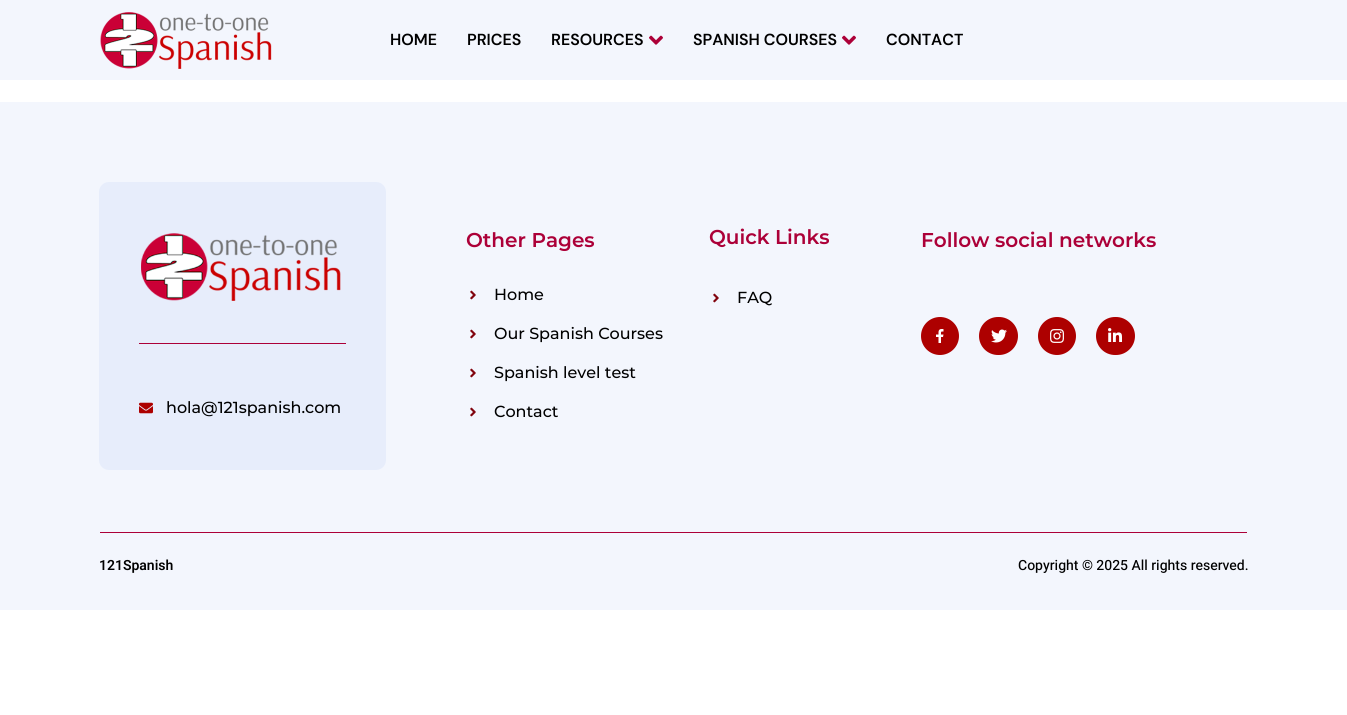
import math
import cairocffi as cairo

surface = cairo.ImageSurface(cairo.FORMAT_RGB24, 1347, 715)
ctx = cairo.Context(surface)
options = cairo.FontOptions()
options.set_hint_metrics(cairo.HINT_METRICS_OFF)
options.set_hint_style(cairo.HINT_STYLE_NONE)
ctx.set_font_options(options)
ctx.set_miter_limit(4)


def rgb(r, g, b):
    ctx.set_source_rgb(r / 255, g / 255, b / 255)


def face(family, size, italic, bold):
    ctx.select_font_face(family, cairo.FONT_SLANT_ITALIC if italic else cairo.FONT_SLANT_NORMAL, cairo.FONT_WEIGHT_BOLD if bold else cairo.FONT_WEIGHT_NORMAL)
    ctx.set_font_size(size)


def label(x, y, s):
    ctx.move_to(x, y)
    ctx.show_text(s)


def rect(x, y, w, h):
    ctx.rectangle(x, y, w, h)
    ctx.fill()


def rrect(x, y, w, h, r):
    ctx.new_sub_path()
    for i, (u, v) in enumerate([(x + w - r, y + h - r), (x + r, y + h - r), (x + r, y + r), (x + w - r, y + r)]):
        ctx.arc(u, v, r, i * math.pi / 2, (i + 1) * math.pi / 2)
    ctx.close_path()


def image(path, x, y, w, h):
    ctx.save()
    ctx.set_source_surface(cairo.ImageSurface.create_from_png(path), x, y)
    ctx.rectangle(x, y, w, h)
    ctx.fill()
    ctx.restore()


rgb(255, 255, 255)
ctx.paint()
rgb(243, 246, 253)
rect(0, 0, 1347, 80)
image('image0.png', 100, 12, 172, 57)
face('DM Sans SemiBold', 16, 0, 0)
rgb(0, 0, 0)
label(390, 45, 'HOME')
label(467, 45, 'PRICES')
label(551, 45, 'RESOURCES')
image('image1.png', 649, 35, 14, 10)
label(693, 45, 'SPANISH COURSES')
image('image1.png', 842, 35, 14, 10)
label(886, 45, 'CONTACT')
rgb(243, 246, 253)
rect(0, 102, 1347, 508)
rgb(231, 237, 251)
rrect(99, 182, 287, 288, 10)
ctx.fill()
image('image2.png', 141, 233, 200, 68)
rgb(172, 0, 56)
rect(139, 343, 207, 1)
image('image3.png', 139, 402, 14, 12)
face('Montserrat Medium', 16, 0, 0)
rgb(0, 0, 0)
label(166, 413, 'hola@121spanish.com')
face('Montserrat SemiBold', 20, 0, 0)
rgb(172, 0, 56)
label(466, 247, 'Other Pages')
image('image4.png', 470, 290, 6, 10)
face('Montserrat Medium', 16, 0, 0)
rgb(0, 0, 0)
label(494, 300, 'Home')
image('image4.png', 470, 329, 6, 10)
label(494, 339, 'Our Spanish Courses')
image('image4.png', 470, 368, 6, 10)
label(494, 378, 'Spanish level test')
image('image4.png', 470, 407, 6, 10)
label(494, 417, 'Contact')
face('Montserrat SemiBold', 20, 0, 0)
rgb(172, 0, 56)
label(709, 244, 'Quick Links')
image('image4.png', 713, 293, 6, 10)
face('Montserrat Medium', 16, 0, 0)
rgb(0, 0, 0)
label(737, 303, 'FAQ')
face('Montserrat SemiBold', 20, 0, 0)
rgb(172, 0, 56)
label(921, 247, 'Follow social networks')
rgb(173, 0, 0)
ctx.new_path()
ctx.arc(940, 336, 19, 0, 2 * math.pi)
ctx.fill()
image('image5.png', 936, 329, 8, 14)
rrect(979, 317, 39, 38, 19)
ctx.fill()
image('image6.png', 991, 329, 16, 14)
ctx.arc(1057, 336, 19, 0, 2 * math.pi)
ctx.fill()
image('image7.png', 1050, 329, 14, 14)
rrect(1096, 317, 39, 38, 19)
ctx.fill()
image('image8.png', 1108, 328, 14, 14)
rgb(172, 0, 56)
rect(100, 532, 1147, 1)
face('Heebo SemiBold', 14, 0, 0)
rgb(0, 0, 0)
label(99, 570, '121Spanish')
face('Heebo Medium', 14, 0, 0)
label(1018, 570, 'Copyright © 2025 All rights reserved.')
surface.write_to_png('render.png')
